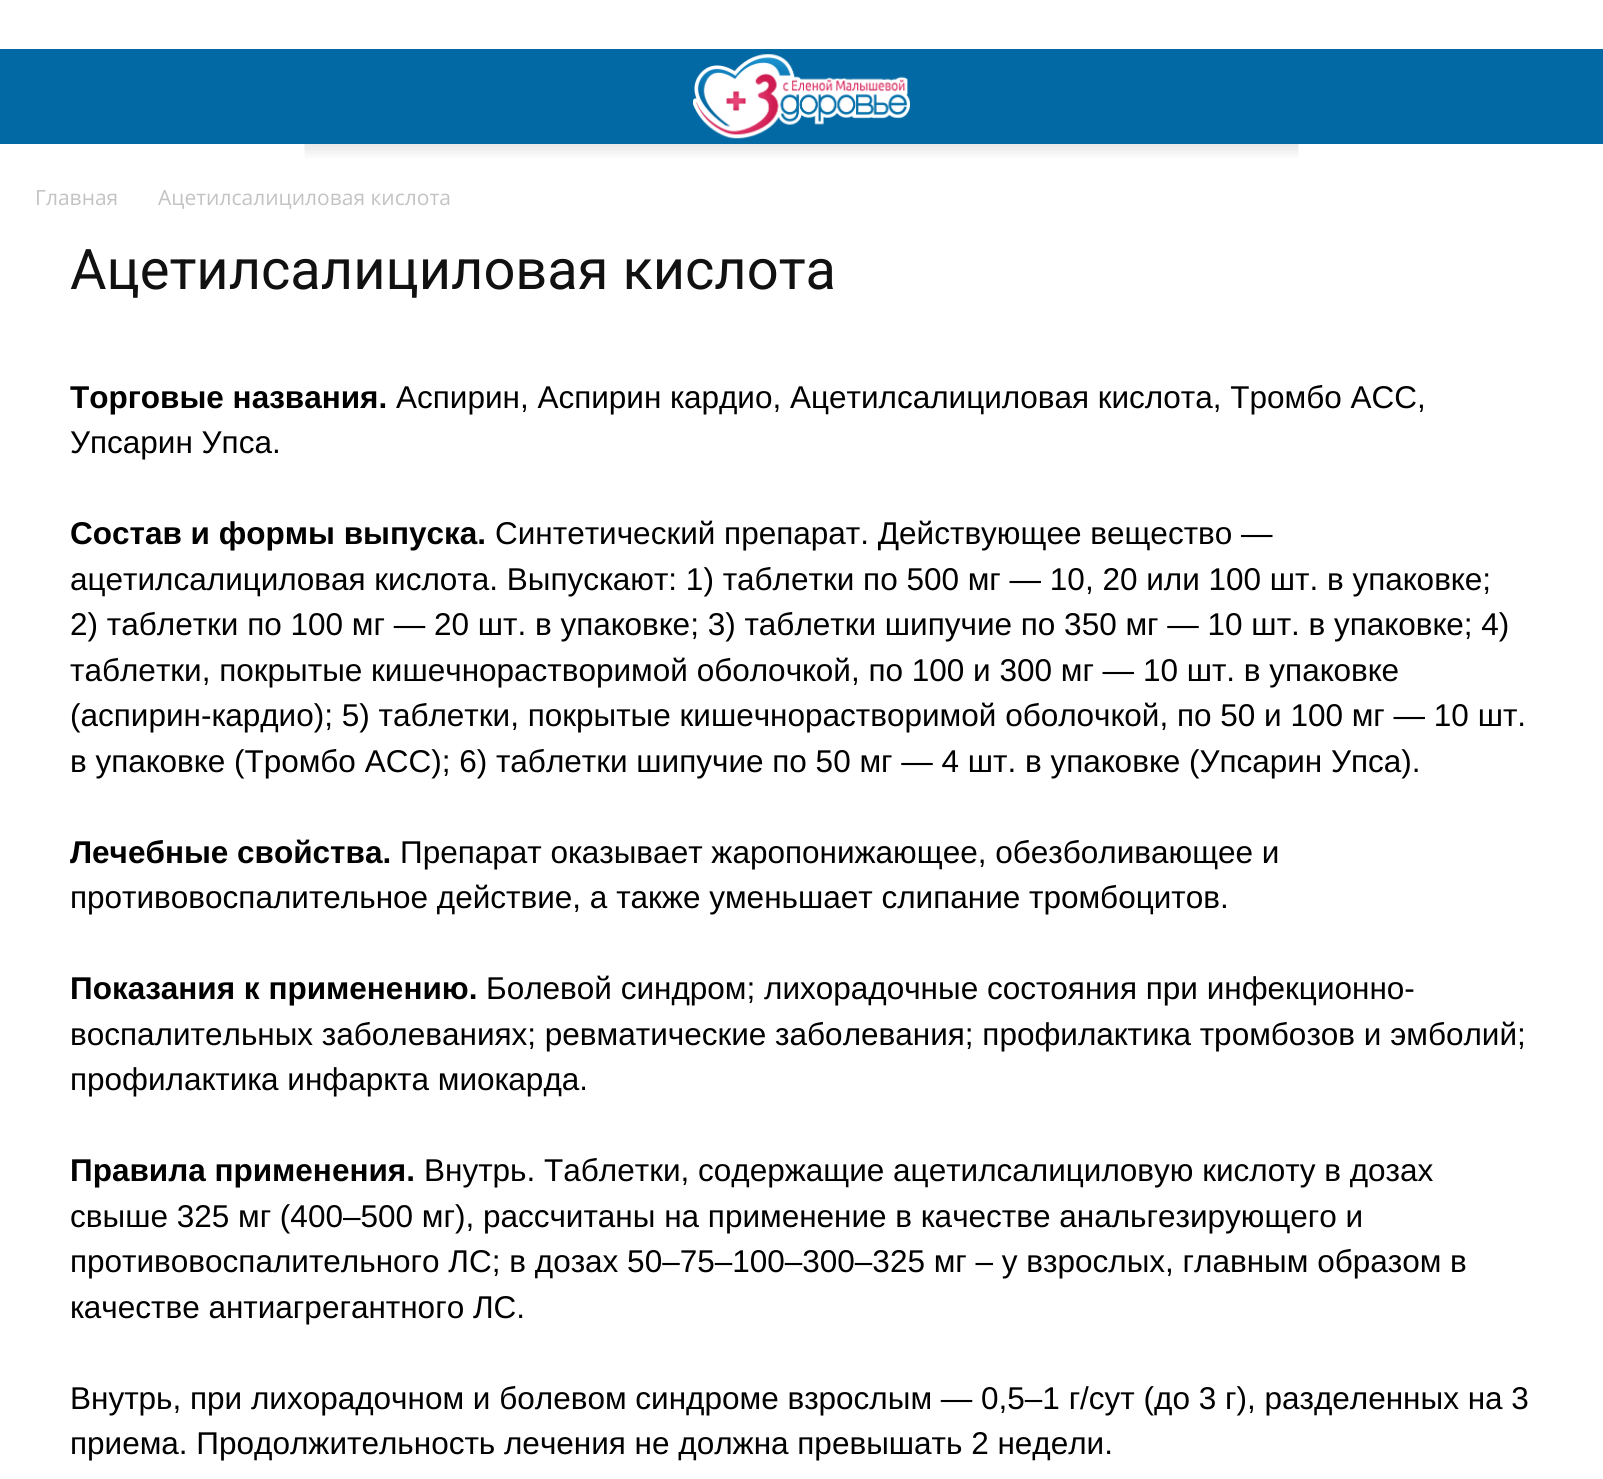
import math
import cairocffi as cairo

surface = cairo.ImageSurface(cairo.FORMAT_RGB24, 1603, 1479)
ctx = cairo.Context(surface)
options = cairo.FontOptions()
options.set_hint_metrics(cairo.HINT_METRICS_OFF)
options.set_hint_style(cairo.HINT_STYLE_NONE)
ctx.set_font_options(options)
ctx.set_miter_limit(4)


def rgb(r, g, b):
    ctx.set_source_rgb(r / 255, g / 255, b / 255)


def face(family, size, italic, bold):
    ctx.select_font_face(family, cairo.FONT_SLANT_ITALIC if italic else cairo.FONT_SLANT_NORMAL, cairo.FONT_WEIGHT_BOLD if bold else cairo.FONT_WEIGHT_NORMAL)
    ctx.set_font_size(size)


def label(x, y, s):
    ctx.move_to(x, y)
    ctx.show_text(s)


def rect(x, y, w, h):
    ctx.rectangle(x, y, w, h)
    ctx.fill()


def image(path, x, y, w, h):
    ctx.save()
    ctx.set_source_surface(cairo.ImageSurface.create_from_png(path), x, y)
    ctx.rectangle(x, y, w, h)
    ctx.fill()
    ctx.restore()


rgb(255, 255, 255)
ctx.paint()
rgb(2, 105, 164)
rect(0, 49, 1603, 95)
image('image0.png', 693, 54, 217, 85)
image('image1.png', 304, 144, 995, 14)
face('Open Sans', 21, 0, 0)
rgb(195, 195, 195)
label(35, 205, 'Главная')
label(158, 205, 'Ацетилсалициловая кислота')
face('Roboto', 56, 0, 0)
rgb(17, 17, 17)
label(70, 289, 'Ацетилсалициловая кислота')
face('Liberation Sans', 31.5, 0, 1)
rgb(0, 0, 0)
label(70, 408, 'Торговые названия.')
face('Liberation Sans', 31.5, 0, 0)
label(396, 408, 'Аспирин, Аспирин кардио, Ацетилсалициловая кислота, Тромбо АСС,')
label(70, 453, 'Упсарин Упса.')
face('Liberation Sans', 31.5, 0, 1)
label(70, 544, 'Состав и формы выпуска.')
face('Liberation Sans', 31.5, 0, 0)
label(495, 544, 'Синтетический препарат. Действующее вещество —')
label(70, 590, 'ацетилсалициловая кислота. Выпускают: 1) таблетки по 500 мг — 10, 20 или 100 шт. в упаковке;')
label(70, 635, '2) таблетки по 100 мг — 20 шт. в упаковке; 3) таблетки шипучие по 350 мг — 10 шт. в упаковке; 4)')
label(70, 681, 'таблетки, покрытые кишечнорастворимой оболочкой, по 100 и 300 мг — 10 шт. в упаковке')
label(70, 726, '(аспирин-кардио); 5) таблетки, покрытые кишечнорастворимой оболочкой, по 50 и 100 мг — 10 шт.')
label(70, 772, 'в упаковке (Тромбо АСС); 6) таблетки шипучие по 50 мг — 4 шт. в упаковке (Упсарин Упса).')
face('Liberation Sans', 31.5, 0, 1)
label(70, 863, 'Лечебные свойства.')
face('Liberation Sans', 31.5, 0, 0)
label(400, 863, 'Препарат оказывает жаропонижающее, обезболивающее и')
label(70, 908, 'противовоспалительное действие, а также уменьшает слипание тромбоцитов.')
face('Liberation Sans', 31.5, 0, 1)
label(70, 999, 'Показания к применению.')
face('Liberation Sans', 31.5, 0, 0)
label(486, 999, 'Болевой синдром; лихорадочные состояния при инфекционно-')
label(70, 1045, 'воспалительных заболеваниях; ревматические заболевания; профилактика тромбозов и эмболий;')
label(70, 1090, 'профилактика инфаркта миокарда.')
face('Liberation Sans', 31.5, 0, 1)
label(70, 1181, 'Правила применения.')
face('Liberation Sans', 31.5, 0, 0)
label(424, 1181, 'Внутрь. Таблетки, содержащие ацетилсалициловую кислоту в дозах')
label(70, 1227, 'свыше 325 мг (400–500 мг), рассчитаны на применение в качестве анальгезирующего и')
label(70, 1272, 'противовоспалительного ЛС; в дозах 50–75–100–300–325 мг – у взрослых, главным образом в')
label(70, 1318, 'качестве антиагрегантного ЛС.')
label(70, 1409, 'Внутрь, при лихорадочном и болевом синдроме взрослым — 0,5–1 г/сут (до 3 г), разделенных на 3')
label(70, 1454, 'приема. Продолжительность лечения не должна превышать 2 недели.')
surface.write_to_png('render.png')
